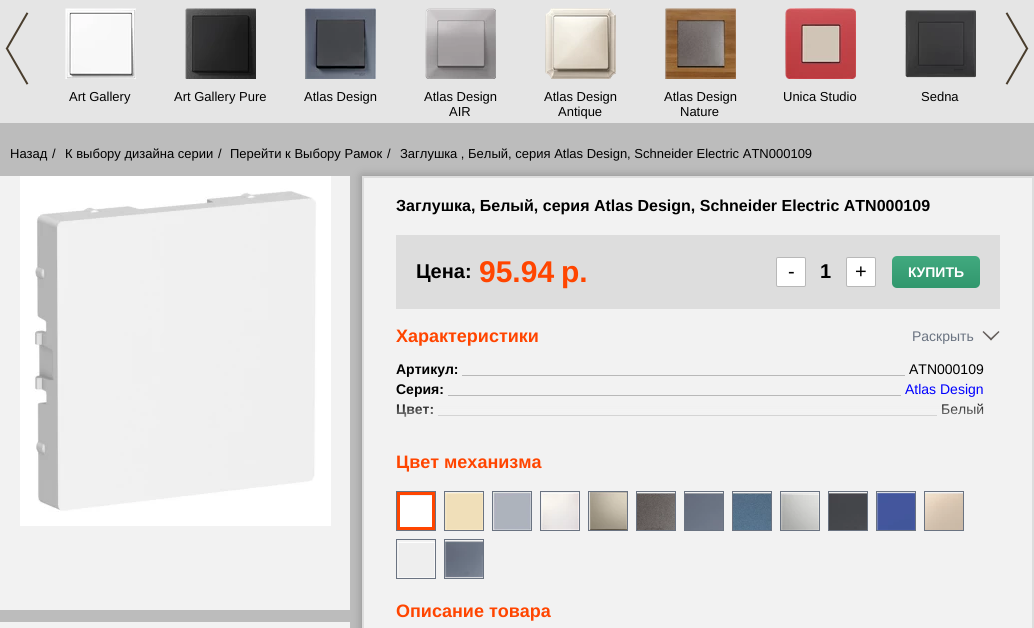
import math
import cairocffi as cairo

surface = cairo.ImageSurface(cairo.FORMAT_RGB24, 1034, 628)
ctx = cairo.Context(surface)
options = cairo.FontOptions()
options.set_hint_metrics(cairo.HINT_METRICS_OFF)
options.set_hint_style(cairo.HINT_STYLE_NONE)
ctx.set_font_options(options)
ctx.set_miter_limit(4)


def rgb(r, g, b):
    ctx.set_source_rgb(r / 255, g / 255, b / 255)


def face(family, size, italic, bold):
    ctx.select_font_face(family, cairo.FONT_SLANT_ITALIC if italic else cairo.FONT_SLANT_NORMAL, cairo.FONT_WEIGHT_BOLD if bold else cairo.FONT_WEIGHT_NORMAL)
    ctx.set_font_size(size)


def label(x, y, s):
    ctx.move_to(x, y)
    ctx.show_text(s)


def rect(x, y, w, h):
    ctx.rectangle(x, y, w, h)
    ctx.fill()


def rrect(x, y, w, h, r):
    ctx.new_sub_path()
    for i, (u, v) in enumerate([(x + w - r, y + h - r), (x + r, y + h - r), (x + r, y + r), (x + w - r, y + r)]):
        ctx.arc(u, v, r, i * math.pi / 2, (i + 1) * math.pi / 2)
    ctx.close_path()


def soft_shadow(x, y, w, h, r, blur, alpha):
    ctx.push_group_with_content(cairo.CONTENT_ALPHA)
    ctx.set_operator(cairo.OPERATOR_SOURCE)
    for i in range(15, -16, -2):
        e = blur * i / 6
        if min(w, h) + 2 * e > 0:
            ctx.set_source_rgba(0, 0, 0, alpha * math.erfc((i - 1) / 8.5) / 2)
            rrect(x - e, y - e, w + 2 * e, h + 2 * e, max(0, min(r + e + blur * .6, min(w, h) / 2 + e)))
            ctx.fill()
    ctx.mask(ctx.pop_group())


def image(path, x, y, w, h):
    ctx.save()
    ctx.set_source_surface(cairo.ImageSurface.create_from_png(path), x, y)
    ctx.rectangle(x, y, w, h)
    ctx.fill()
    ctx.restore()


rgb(188, 188, 188)
ctx.paint()
rgb(229, 229, 229)
rect(0, 0, 1034, 123)
image('image0.png', 5, 12, 24, 73)
image('image1.png', 1005, 12, 24, 73)
image('image2.png', 65, 8, 71, 71)
face('Liberation Sans', 13, 0, 0)
rgb(0, 0, 0)
label(69, 101, 'Art Gallery')
image('image3.png', 185, 8, 71, 71)
label(174, 101, 'Art Gallery Pure')
image('image4.png', 305, 8, 71, 71)
label(304, 101, 'Atlas Design')
image('image5.png', 425, 8, 71, 71)
label(424, 101, 'Atlas Design')
label(449, 116, 'AIR')
image('image6.png', 545, 8, 71, 71)
label(544, 101, 'Atlas Design')
label(558, 116, 'Antique')
image('image7.png', 665, 8, 71, 71)
label(664, 101, 'Atlas Design')
label(680, 116, 'Nature')
image('image8.png', 785, 8, 71, 71)
label(783, 101, 'Unica Studio')
image('image9.png', 905, 10, 71, 68)
label(921, 101, 'Sedna')
label(10, 158, 'Назад')
label(52, 158, '/')
label(65, 158, 'К выбору дизайна серии')
label(218, 158, '/')
label(230, 158, 'Перейти к Выбору Рамок')
label(387, 158, '/')
label(400, 158, 'Заглушка , Белый, серия Atlas Design, Schneider Electric ATN000109')
rgb(242, 242, 242)
rect(0, 176, 350, 434)
image('image10.png', 20, 176, 311, 350)
rect(0, 622, 350, 6)
rgb(0, 0, 0)
soft_shadow(362, 176, 672, 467, 0, 5, 0.25)
rgb(242, 242, 242)
ctx.rectangle(363, 177, 670, 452)
ctx.fill_preserve()
rgb(221, 221, 221)
ctx.stroke()
face('Liberation Sans', 16, 0, 1)
rgb(0, 0, 0)
label(396, 211, 'Заглушка, Белый, серия Atlas Design, Schneider Electric ATN000109')
rgb(221, 221, 221)
rect(396, 235, 604, 74)
face('Liberation Sans', 20, 0, 1)
rgb(0, 0, 0)
label(416, 278, 'Цена:')
face('Liberation Sans', 30, 0, 1)
rgb(255, 69, 0)
label(479, 282, '95.94')
label(561, 282, 'р.')
rgb(255, 255, 255)
rrect(776.5, 257.5, 29, 29, 1.5)
ctx.fill_preserve()
rgb(184, 184, 184)
ctx.set_line_width(1)
ctx.stroke()
face('Liberation Sans', 20, 0, 0)
rgb(0, 0, 0)
label(788, 278, '-')
face('Liberation Sans', 20, 0, 1)
label(820, 278, '1')
rgb(255, 255, 255)
rrect(846.5, 257.5, 29, 29, 1.5)
ctx.fill_preserve()
rgb(184, 184, 184)
ctx.stroke()
face('Liberation Sans', 20, 0, 0)
rgb(0, 0, 0)
label(855, 278, '+')
gradient = cairo.LinearGradient(936, 256, 936, 288)
gradient.add_color_stop_rgba(0, 0.255, 0.663, 0.498, 1)
gradient.add_color_stop_rgba(1, 0.192, 0.592, 0.427, 1)
ctx.set_source(gradient)
rrect(892, 256, 88, 32, 5)
ctx.fill()
face('Liberation Sans', 14, 0, 1)
rgb(255, 255, 255)
label(908, 277, 'КУПИТЬ')
face('Liberation Sans', 18, 0, 1)
rgb(255, 69, 0)
label(396, 342, 'Характеристики')
face('Liberation Sans', 14, 0, 0)
rgb(106, 115, 129)
label(912, 341, 'Раскрыть')
rgb(100, 94, 91)
ctx.new_path()
ctx.move_to(982.5, 332)
ctx.line_to(983.5, 331)
ctx.line_to(992, 339)
ctx.line_to(991, 340.5)
ctx.close_path()
ctx.fill()
ctx.new_path()
ctx.move_to(998.5, 331)
ctx.line_to(999.5, 332)
ctx.line_to(991, 340.5)
ctx.line_to(990, 339)
ctx.close_path()
ctx.fill()
face('Liberation Sans', 14, 0, 1)
rgb(0, 0, 0)
label(396, 374, 'Артикул:')
face('Liberation Sans', 14, 0, 0)
label(909, 374, 'ATN000109')
rgb(184, 184, 184)
rect(462, 375, 443, 1)
face('Liberation Sans', 14, 0, 1)
rgb(0, 0, 0)
label(396, 394, 'Серия:')
rgb(184, 184, 184)
rect(448, 395, 453, 1)
face('Liberation Sans', 14, 0, 0)
rgb(0, 0, 255)
label(905, 394, 'Atlas Design')
face('Liberation Sans', 14, 0, 1)
rgb(0, 0, 0)
label(396, 414, 'Цвет:')
rgb(184, 184, 184)
rect(438, 415, 499, 1)
face('Liberation Sans', 14, 0, 0)
rgb(0, 0, 0)
label(941, 414, 'Белый')
gradient = cairo.LinearGradient(698, 401, 698, 431)
gradient.add_color_stop_rgba(0, 0.949, 0.949, 0.949, 0)
gradient.add_color_stop_rgba(1, 0.949, 0.949, 0.949, 1)
ctx.set_source(gradient)
rect(396, 403, 588, 14)
face('Liberation Sans', 18, 0, 1)
rgb(255, 69, 0)
label(396, 468, 'Цвет механизма')
ctx.rectangle(398.5, 493.5, 35, 35)
ctx.set_line_width(3)
ctx.stroke()
ctx.rectangle(396.5, 491.5, 39, 39)
rgb(106, 115, 129)
ctx.set_line_width(1)
ctx.stroke()
rgb(255, 255, 255)
rect(400, 496, 32, 31)
ctx.rectangle(444.5, 491.5, 39, 39)
rgb(106, 115, 129)
ctx.stroke()
image('image11.png', 445, 492, 38, 38)
ctx.rectangle(492.5, 491.5, 39, 39)
ctx.stroke()
image('image12.png', 493, 492, 38, 38)
ctx.rectangle(540.5, 491.5, 39, 39)
ctx.stroke()
image('image13.png', 541, 493, 38, 37)
ctx.rectangle(588.5, 491.5, 39, 39)
ctx.stroke()
image('image14.png', 589, 492, 38, 38)
ctx.rectangle(636.5, 491.5, 39, 39)
ctx.stroke()
image('image15.png', 637, 493, 38, 37)
ctx.rectangle(684.5, 491.5, 39, 39)
ctx.stroke()
image('image16.png', 685, 493, 38, 37)
ctx.rectangle(732.5, 491.5, 39, 39)
ctx.stroke()
image('image17.png', 733, 493, 38, 37)
ctx.rectangle(780.5, 491.5, 39, 39)
ctx.stroke()
image('image18.png', 781, 493, 38, 37)
ctx.rectangle(828.5, 491.5, 39, 39)
ctx.stroke()
image('image19.png', 829, 493, 38, 37)
ctx.rectangle(876.5, 491.5, 39, 39)
ctx.stroke()
image('image20.png', 877, 492, 38, 38)
ctx.rectangle(924.5, 491.5, 39, 39)
ctx.stroke()
image('image21.png', 925, 493, 38, 37)
ctx.rectangle(396.5, 539.5, 39, 39)
ctx.stroke()
image('image22.png', 398, 542, 37, 36)
ctx.rectangle(444.5, 539.5, 39, 39)
ctx.stroke()
image('image23.png', 445, 541, 38, 37)
rgb(255, 69, 0)
label(396, 617, 'Описание товара')
surface.write_to_png('render.png')
